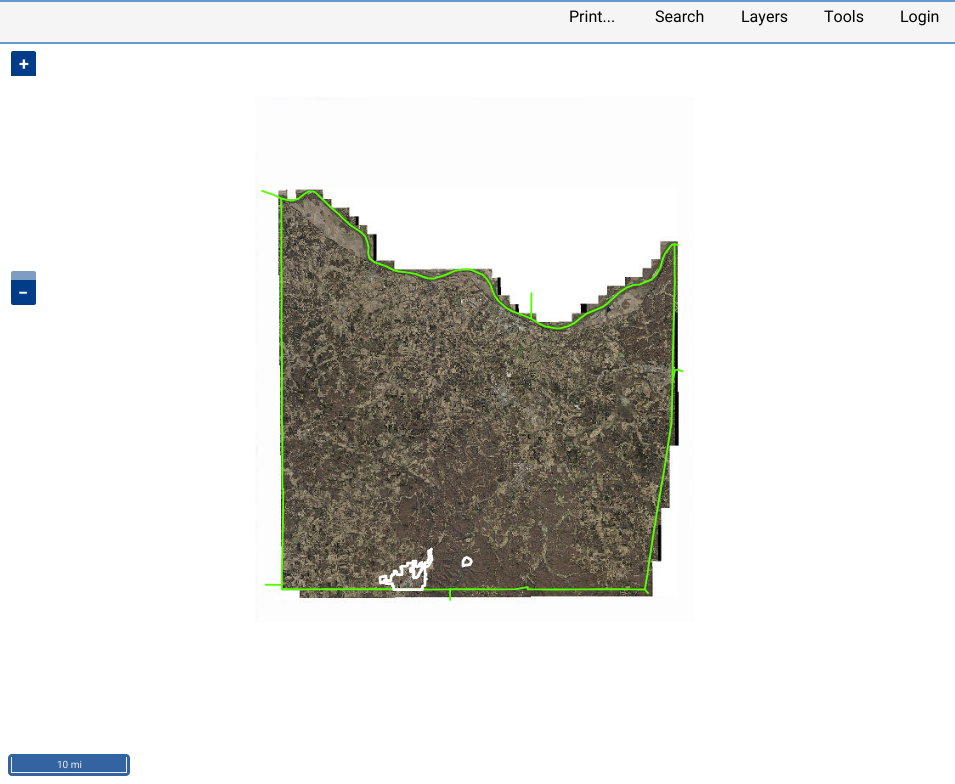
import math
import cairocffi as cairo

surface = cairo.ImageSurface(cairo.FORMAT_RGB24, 955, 784)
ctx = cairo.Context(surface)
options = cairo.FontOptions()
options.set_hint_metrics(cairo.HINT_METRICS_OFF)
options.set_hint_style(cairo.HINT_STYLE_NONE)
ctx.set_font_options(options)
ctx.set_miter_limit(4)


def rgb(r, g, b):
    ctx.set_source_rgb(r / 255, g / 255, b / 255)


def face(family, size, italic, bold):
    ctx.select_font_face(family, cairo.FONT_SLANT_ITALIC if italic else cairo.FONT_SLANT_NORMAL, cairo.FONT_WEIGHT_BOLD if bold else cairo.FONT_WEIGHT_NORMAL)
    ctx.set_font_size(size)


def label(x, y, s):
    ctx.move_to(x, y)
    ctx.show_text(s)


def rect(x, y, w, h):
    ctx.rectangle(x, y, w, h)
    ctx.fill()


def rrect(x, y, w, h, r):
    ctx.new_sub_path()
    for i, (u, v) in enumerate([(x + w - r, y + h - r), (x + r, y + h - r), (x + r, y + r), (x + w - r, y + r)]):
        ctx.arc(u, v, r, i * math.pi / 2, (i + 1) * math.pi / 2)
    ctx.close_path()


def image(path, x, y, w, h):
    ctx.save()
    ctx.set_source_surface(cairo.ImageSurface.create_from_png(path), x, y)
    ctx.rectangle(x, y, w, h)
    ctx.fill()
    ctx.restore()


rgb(255, 255, 255)
ctx.paint()
rgb(245, 245, 245)
rect(0, 2, 955, 40)
rgb(102, 153, 204)
rect(0, 0, 955, 2)
rect(0, 42, 955, 2)
face('Roboto', 16, 0, 0)
rgb(0, 0, 0)
label(569, 22, 'Print...')
label(655, 22, 'Search')
label(741, 22, 'Layers')
label(824, 22, 'Tools')
label(900, 22, 'Login')
rgb(0, 60, 136)
ctx.new_path()
ctx.move_to(13, 51)
ctx.line_to(34, 51)
ctx.curve_to(35, 51, 36, 52, 36, 53)
ctx.line_to(36, 76)
ctx.line_to(11, 76)
ctx.line_to(11, 53)
ctx.curve_to(11, 52, 12, 51, 13, 51)
ctx.close_path()
ctx.fill()
face('Roboto', 18, 0, 1)
rgb(255, 255, 255)
label(19, 70, '+')
rgb(0, 60, 136)
ctx.new_path()
ctx.move_to(11, 280)
ctx.line_to(36, 280)
ctx.line_to(36, 303)
ctx.curve_to(36, 304, 35, 305, 34, 305)
ctx.line_to(13, 305)
ctx.curve_to(12, 305, 11, 304, 11, 303)
ctx.close_path()
ctx.fill()
rgb(255, 255, 255)
label(18, 299, '−')
ctx.set_source_rgba(0, 0.235, 0.533, 0.5)
rrect(11, 271, 25, 10, 2)
ctx.fill()
rgb(51, 99, 160)
rrect(8, 754, 122, 22, 4)
ctx.fill()
rgb(238, 238, 238)
rect(126, 757, 1, 16)
rect(11, 772, 116, 1)
rect(11, 757, 1, 16)
face('Roboto', 10, 0, 0)
label(57, 768, '10 mi')
image('image0.png', 255, 97, 439, 525)
surface.write_to_png('render.png')
